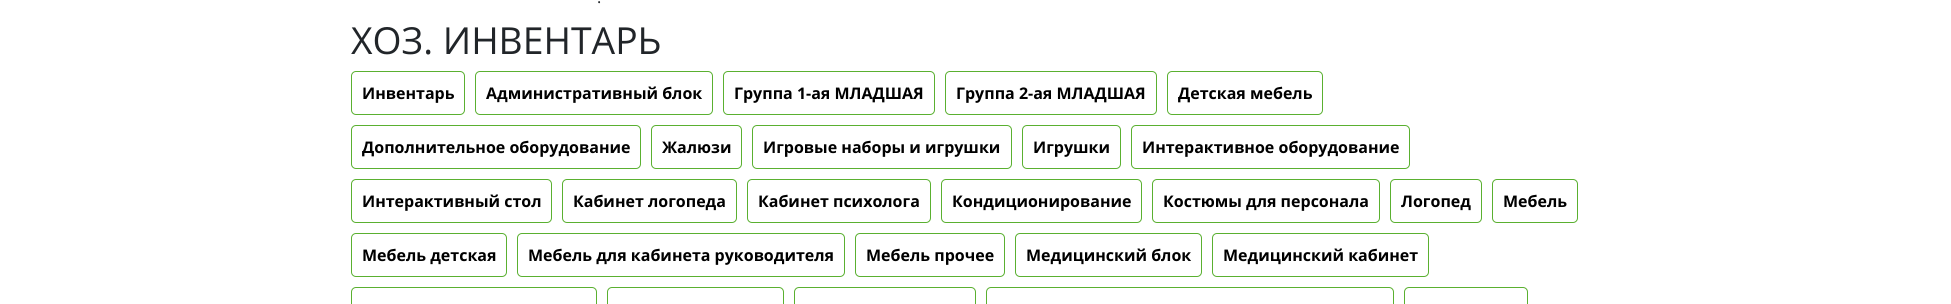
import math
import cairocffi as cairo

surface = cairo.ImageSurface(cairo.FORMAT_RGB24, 1951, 304)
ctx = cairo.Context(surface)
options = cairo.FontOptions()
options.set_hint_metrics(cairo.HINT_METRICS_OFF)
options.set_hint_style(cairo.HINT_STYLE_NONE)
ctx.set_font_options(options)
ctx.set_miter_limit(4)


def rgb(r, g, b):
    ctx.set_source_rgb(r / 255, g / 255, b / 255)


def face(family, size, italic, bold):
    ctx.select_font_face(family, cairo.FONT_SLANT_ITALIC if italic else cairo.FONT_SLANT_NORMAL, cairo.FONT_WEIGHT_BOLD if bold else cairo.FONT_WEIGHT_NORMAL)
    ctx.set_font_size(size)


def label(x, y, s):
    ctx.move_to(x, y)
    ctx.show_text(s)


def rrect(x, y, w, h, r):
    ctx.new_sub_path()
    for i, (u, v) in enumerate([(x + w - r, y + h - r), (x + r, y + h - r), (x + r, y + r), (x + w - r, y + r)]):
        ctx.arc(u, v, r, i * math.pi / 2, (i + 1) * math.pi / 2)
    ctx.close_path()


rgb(255, 255, 255)
ctx.paint()
face('Open Sans', 16, 0, 0)
rgb(33, 37, 41)
label(597, 3, '.')
face('Open Sans', 37.25, 0, 0)
label(351, 54, 'ХОЗ. ИНВЕНТАРЬ')
rrect(351.5, 71.5, 113, 43, 4.5)
rgb(90, 176, 48)
ctx.set_line_width(1)
ctx.stroke()
face('Open Sans', 16, 0, 1)
rgb(0, 0, 0)
label(362, 99, 'Инвентарь')
rrect(475.5, 71.5, 237, 43, 4.5)
rgb(90, 176, 48)
ctx.stroke()
rgb(0, 0, 0)
label(486, 99, 'Административный блок')
rrect(723.5, 71.5, 211, 43, 4.5)
rgb(90, 176, 48)
ctx.stroke()
rgb(0, 0, 0)
label(734, 99, 'Группа 1-ая МЛАДШАЯ')
rrect(945.5, 71.5, 211, 43, 4.5)
rgb(90, 176, 48)
ctx.stroke()
rgb(0, 0, 0)
label(956, 99, 'Группа 2-ая МЛАДШАЯ')
rrect(1167.5, 71.5, 155, 43, 4.5)
rgb(90, 176, 48)
ctx.stroke()
rgb(0, 0, 0)
label(1178, 99, 'Детская мебель')
rrect(351.5, 125.5, 289, 43, 4.5)
rgb(90, 176, 48)
ctx.stroke()
rgb(0, 0, 0)
label(362, 153, 'Дополнительное оборудование')
rrect(651.5, 125.5, 90, 43, 4.5)
rgb(90, 176, 48)
ctx.stroke()
rgb(0, 0, 0)
label(662, 153, 'Жалюзи')
rrect(752.5, 125.5, 259, 43, 4.5)
rgb(90, 176, 48)
ctx.stroke()
rgb(0, 0, 0)
label(763, 153, 'Игровые наборы и игрушки')
rrect(1022.5, 125.5, 98, 43, 4.5)
rgb(90, 176, 48)
ctx.stroke()
rgb(0, 0, 0)
label(1033, 153, 'Игрушки')
rrect(1131.5, 125.5, 278, 43, 4.5)
rgb(90, 176, 48)
ctx.stroke()
rgb(0, 0, 0)
label(1142, 153, 'Интерактивное оборудование')
rrect(351.5, 179.5, 200, 43, 4.5)
rgb(90, 176, 48)
ctx.stroke()
rgb(0, 0, 0)
label(362, 207, 'Интерактивный стол')
rrect(562.5, 179.5, 174, 43, 4.5)
rgb(90, 176, 48)
ctx.stroke()
rgb(0, 0, 0)
label(573, 207, 'Кабинет логопеда')
rrect(747.5, 179.5, 183, 43, 4.5)
rgb(90, 176, 48)
ctx.stroke()
rgb(0, 0, 0)
label(758, 207, 'Кабинет психолога')
rrect(941.5, 179.5, 200, 43, 4.5)
rgb(90, 176, 48)
ctx.stroke()
rgb(0, 0, 0)
label(952, 207, 'Кондиционирование')
rrect(1152.5, 179.5, 227, 43, 4.5)
rgb(90, 176, 48)
ctx.stroke()
rgb(0, 0, 0)
label(1163, 207, 'Костюмы для персонала')
rrect(1390.5, 179.5, 91, 43, 4.5)
rgb(90, 176, 48)
ctx.stroke()
rgb(0, 0, 0)
label(1401, 207, 'Логопед')
rrect(1492.5, 179.5, 85, 43, 4.5)
rgb(90, 176, 48)
ctx.stroke()
rgb(0, 0, 0)
label(1503, 207, 'Мебель')
rrect(351.5, 233.5, 155, 43, 4.5)
rgb(90, 176, 48)
ctx.stroke()
rgb(0, 0, 0)
label(362, 261, 'Мебель детская')
rrect(517.5, 233.5, 327, 43, 4.5)
rgb(90, 176, 48)
ctx.stroke()
rgb(0, 0, 0)
label(528, 261, 'Мебель для кабинета руководителя')
rrect(855.5, 233.5, 149, 43, 4.5)
rgb(90, 176, 48)
ctx.stroke()
rgb(0, 0, 0)
label(866, 261, 'Мебель прочее')
rrect(1015.5, 233.5, 186, 43, 4.5)
rgb(90, 176, 48)
ctx.stroke()
rgb(0, 0, 0)
label(1026, 261, 'Медицинский блок')
rrect(1212.5, 233.5, 216, 43, 4.5)
rgb(90, 176, 48)
ctx.stroke()
rgb(0, 0, 0)
label(1223, 261, 'Медицинский кабинет')
rrect(351.5, 287.5, 245, 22, 4.5)
rgb(90, 176, 48)
ctx.stroke()
rrect(607.5, 287.5, 176, 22, 4.5)
ctx.stroke()
rrect(794.5, 287.5, 181, 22, 4.5)
ctx.stroke()
rrect(986.5, 287.5, 407, 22, 4.5)
ctx.stroke()
rrect(1404.5, 287.5, 123, 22, 4.5)
ctx.stroke()
surface.write_to_png('render.png')
